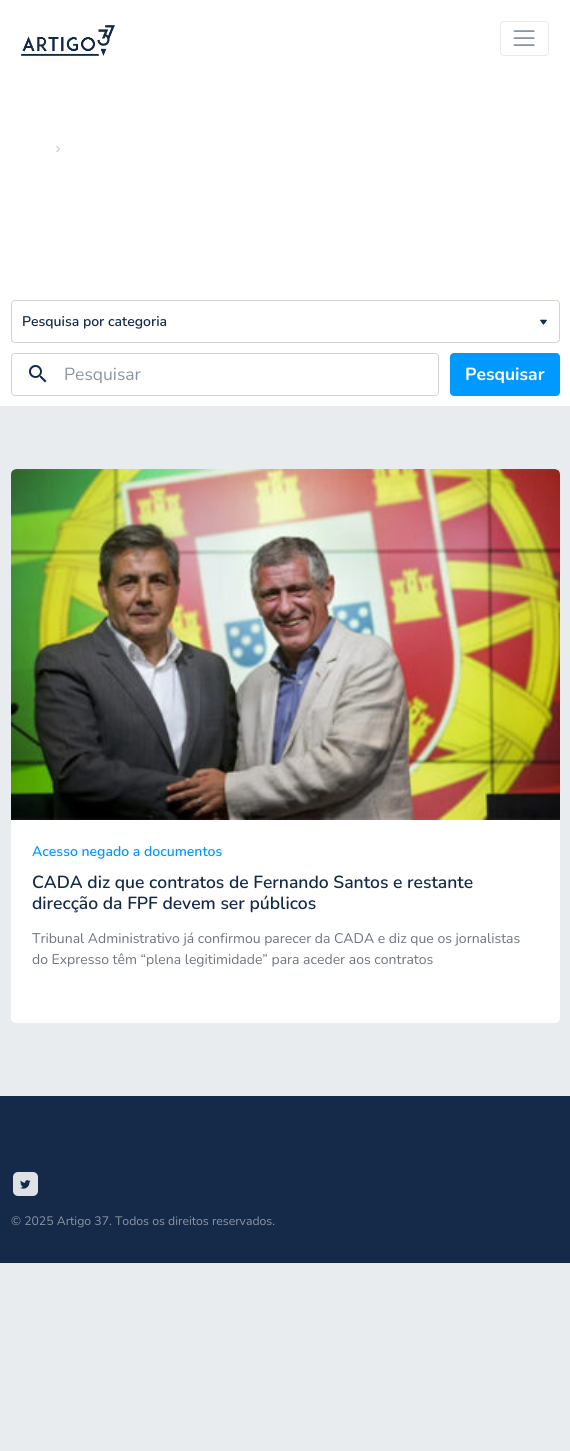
import math
import cairocffi as cairo

surface = cairo.ImageSurface(cairo.FORMAT_RGB24, 570, 1451)
ctx = cairo.Context(surface)
options = cairo.FontOptions()
options.set_hint_metrics(cairo.HINT_METRICS_OFF)
options.set_hint_style(cairo.HINT_STYLE_NONE)
ctx.set_font_options(options)
ctx.set_miter_limit(4)


def rgb(r, g, b):
    ctx.set_source_rgb(r / 255, g / 255, b / 255)


def face(family, size, italic, bold):
    ctx.select_font_face(family, cairo.FONT_SLANT_ITALIC if italic else cairo.FONT_SLANT_NORMAL, cairo.FONT_WEIGHT_BOLD if bold else cairo.FONT_WEIGHT_NORMAL)
    ctx.set_font_size(size)


def label(x, y, s):
    ctx.move_to(x, y)
    ctx.show_text(s)


def rect(x, y, w, h):
    ctx.rectangle(x, y, w, h)
    ctx.fill()


def rrect(x, y, w, h, r):
    ctx.new_sub_path()
    for i, (u, v) in enumerate([(x + w - r, y + h - r), (x + r, y + h - r), (x + r, y + r), (x + w - r, y + r)]):
        ctx.arc(u, v, r, i * math.pi / 2, (i + 1) * math.pi / 2)
    ctx.close_path()


def image(path, x, y, w, h):
    ctx.save()
    ctx.set_source_surface(cairo.ImageSurface.create_from_png(path), x, y)
    ctx.rectangle(x, y, w, h)
    ctx.fill()
    ctx.restore()


rgb(233, 236, 239)
ctx.paint()
rgb(255, 255, 255)
rect(0, 0, 570, 406)
image('image0.png', 56, 145, 4, 8)
image('image1.png', 21, 25, 94, 31)
rrect(500.5, 21.5, 48, 34, 3.5)
rgb(232, 234, 237)
ctx.set_line_width(1)
ctx.stroke()
image('image2.png', 513, 30, 22, 16)
image('image3.png', 540, 319, 7, 6)
rrect(11.5, 300.5, 548, 42, 3.5)
rgb(206, 212, 218)
ctx.stroke()
face('Nunito SemiBold', 14, 0, 0)
rgb(21, 42, 73)
label(22, 326, 'Pesquisa por categoria')
ctx.new_path()
ctx.move_to(15, 353.5)
ctx.line_to(64.5, 353.5)
ctx.line_to(64.5, 395.5)
ctx.line_to(15, 395.5)
ctx.curve_to(13, 395.5, 11.5, 394, 11.5, 392)
ctx.line_to(11.5, 357)
ctx.curve_to(11.5, 355, 13, 353.5, 15, 353.5)
ctx.close_path()
rgb(206, 212, 218)
ctx.stroke()
image('image4.png', 29, 365, 18, 18)
rgb(255, 255, 255)
ctx.new_path()
ctx.move_to(64, 354)
ctx.line_to(435.5, 354)
ctx.curve_to(437, 354, 438, 355, 438, 356.5)
ctx.line_to(438, 392.5)
ctx.curve_to(438, 394, 437, 395, 435.5, 395)
ctx.line_to(64, 395)
ctx.close_path()
ctx.fill()
rgb(206, 212, 218)
ctx.set_fill_rule(cairo.FILL_RULE_EVEN_ODD)
ctx.new_path()
ctx.move_to(64, 353)
ctx.line_to(436, 353)
ctx.curve_to(437, 353, 439, 355, 439, 356)
ctx.line_to(439, 392)
ctx.curve_to(439, 394, 437, 396, 436, 396)
ctx.line_to(64, 396)
ctx.close_path()
ctx.move_to(64, 354)
ctx.line_to(436, 354)
ctx.curve_to(437, 354, 438, 355, 438, 356)
ctx.line_to(438, 392)
ctx.curve_to(438, 394, 437, 395, 436, 395)
ctx.line_to(64, 395)
ctx.close_path()
ctx.fill()
face('Nunito', 17.5, 0, 0)
rgb(138, 149, 164)
label(64, 380, 'Pesquisar')
rgb(0, 153, 255)
rrect(450.5, 353.5, 109, 42, 3.5)
ctx.fill_preserve()
ctx.stroke()
face('Nunito', 17.5, 0, 1)
rgb(255, 255, 255)
label(465, 380, 'Pesquisar')
rrect(11, 469, 549, 554, 5)
ctx.fill()
image('image5.png', 11, 469, 549, 351)
face('Nunito SemiBold', 14, 0, 0)
rgb(0, 153, 255)
label(32, 856, 'Acesso negado a documentos')
face('Nunito SemiBold', 17.5, 0, 0)
rgb(21, 42, 73)
label(32, 888, 'CADA diz que contratos de Fernando Santos e restante')
label(32, 909, 'direcção da FPF devem ser públicos')
face('Nunito', 14, 0, 0)
rgb(108, 117, 125)
label(32, 943, 'Tribunal Administrativo já confirmou parecer da CADA e diz que os jornalistas')
label(32, 964, 'do Expresso têm “plena legitimidade” para aceder aos contratos')
rgb(21, 42, 73)
rect(0, 1096, 570, 167)
rgb(222, 226, 230)
rrect(13, 1172, 25, 24, 5)
ctx.fill()
image('image6.png', 20, 1180, 11, 9)
face('Nunito', 12.25, 0, 0)
rgb(138, 149, 164)
label(11, 1225, '© 2025 Artigo 37. Todos os direitos reservados.')
surface.write_to_png('render.png')
